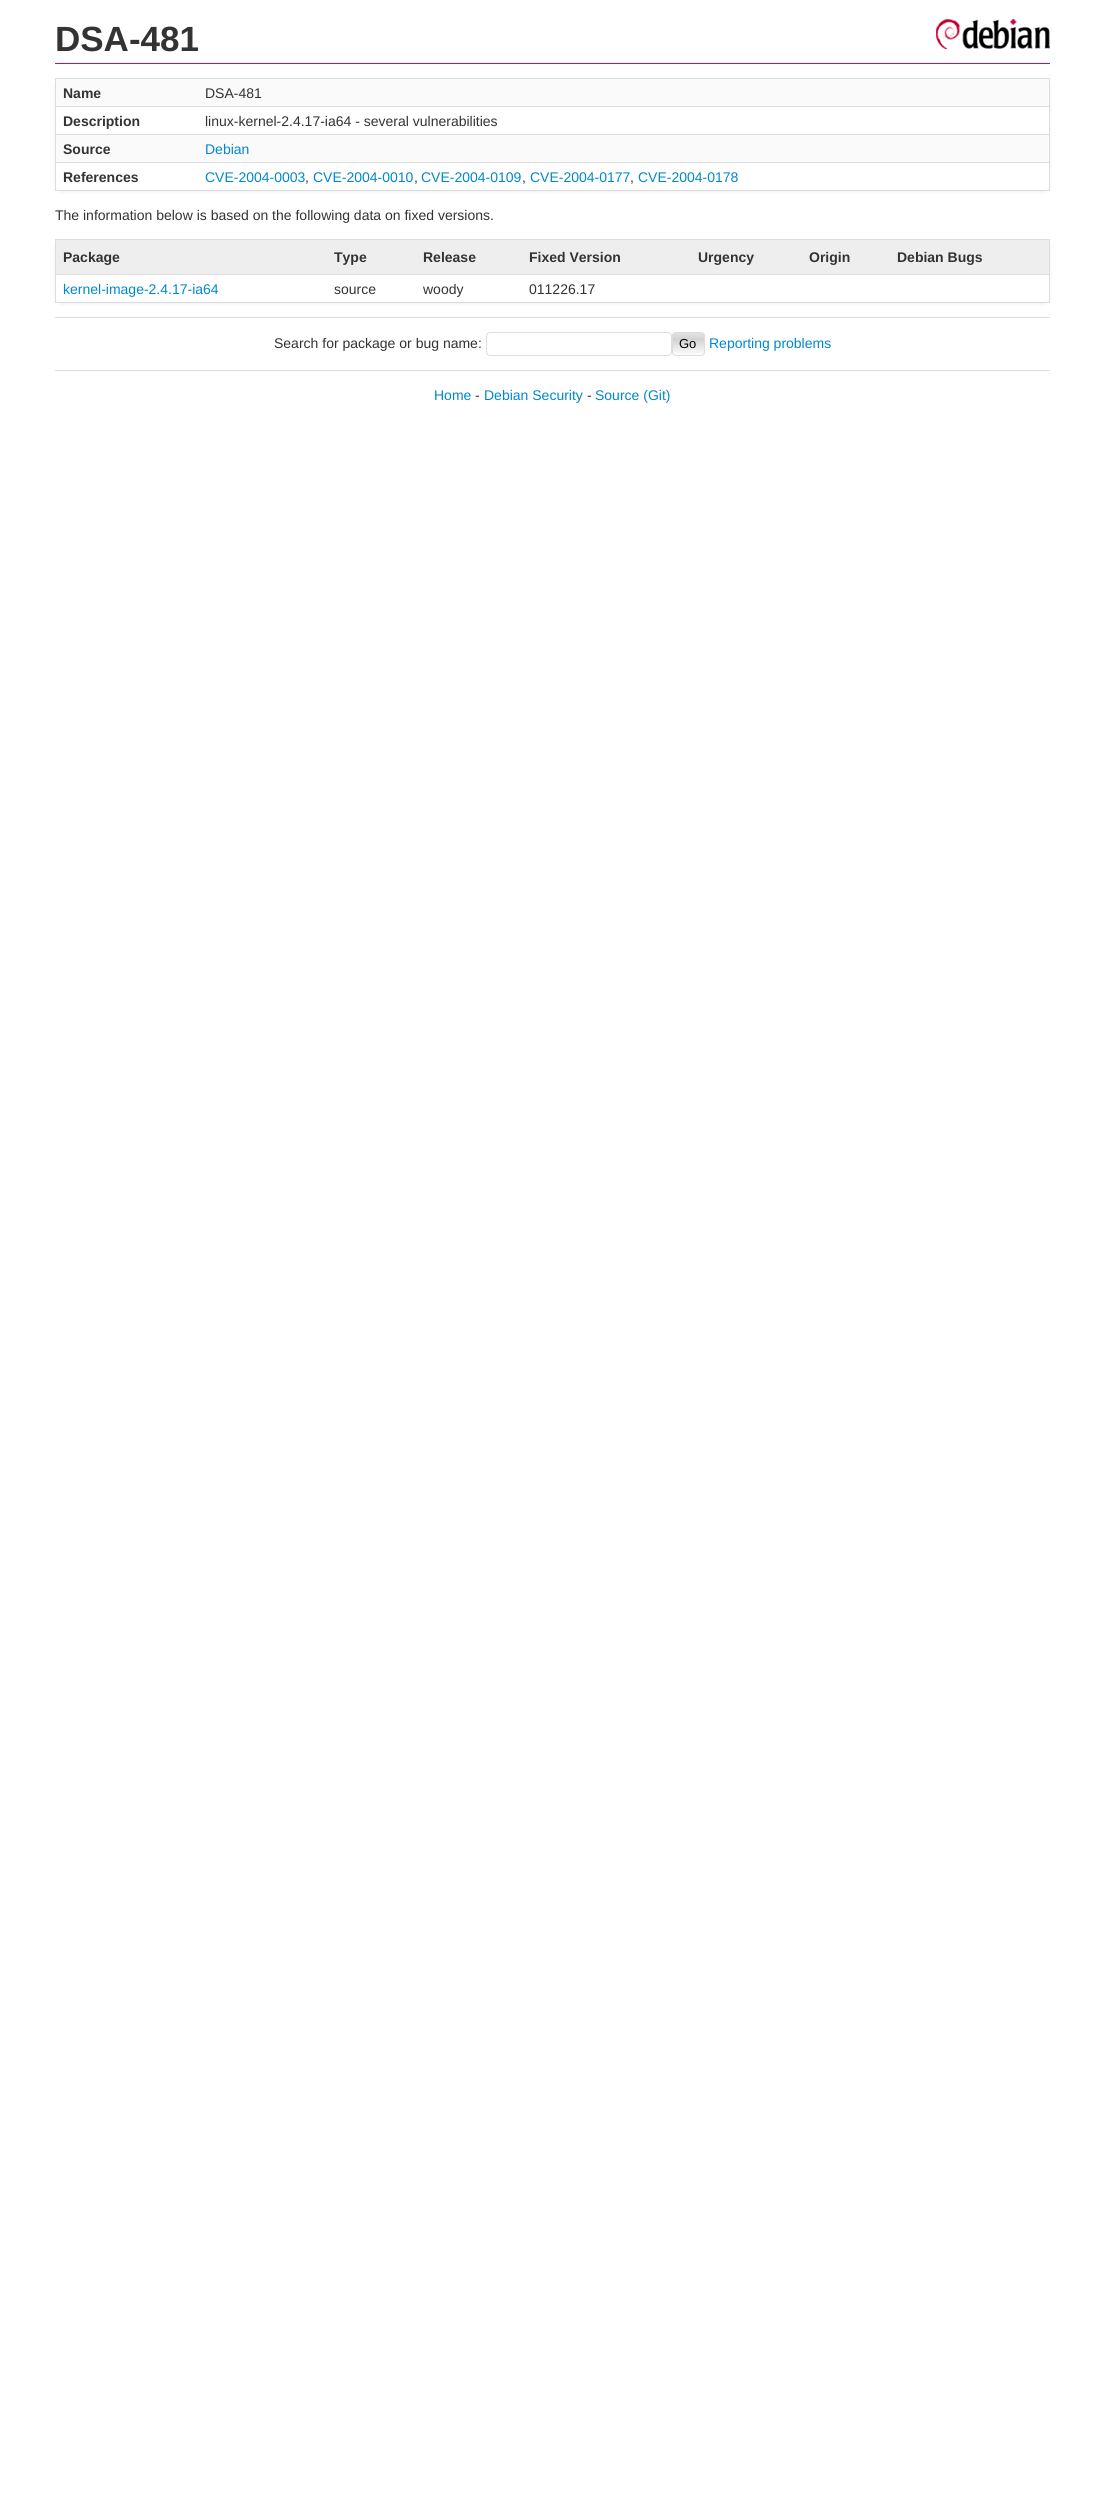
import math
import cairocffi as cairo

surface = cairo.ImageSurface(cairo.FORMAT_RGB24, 1105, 2501)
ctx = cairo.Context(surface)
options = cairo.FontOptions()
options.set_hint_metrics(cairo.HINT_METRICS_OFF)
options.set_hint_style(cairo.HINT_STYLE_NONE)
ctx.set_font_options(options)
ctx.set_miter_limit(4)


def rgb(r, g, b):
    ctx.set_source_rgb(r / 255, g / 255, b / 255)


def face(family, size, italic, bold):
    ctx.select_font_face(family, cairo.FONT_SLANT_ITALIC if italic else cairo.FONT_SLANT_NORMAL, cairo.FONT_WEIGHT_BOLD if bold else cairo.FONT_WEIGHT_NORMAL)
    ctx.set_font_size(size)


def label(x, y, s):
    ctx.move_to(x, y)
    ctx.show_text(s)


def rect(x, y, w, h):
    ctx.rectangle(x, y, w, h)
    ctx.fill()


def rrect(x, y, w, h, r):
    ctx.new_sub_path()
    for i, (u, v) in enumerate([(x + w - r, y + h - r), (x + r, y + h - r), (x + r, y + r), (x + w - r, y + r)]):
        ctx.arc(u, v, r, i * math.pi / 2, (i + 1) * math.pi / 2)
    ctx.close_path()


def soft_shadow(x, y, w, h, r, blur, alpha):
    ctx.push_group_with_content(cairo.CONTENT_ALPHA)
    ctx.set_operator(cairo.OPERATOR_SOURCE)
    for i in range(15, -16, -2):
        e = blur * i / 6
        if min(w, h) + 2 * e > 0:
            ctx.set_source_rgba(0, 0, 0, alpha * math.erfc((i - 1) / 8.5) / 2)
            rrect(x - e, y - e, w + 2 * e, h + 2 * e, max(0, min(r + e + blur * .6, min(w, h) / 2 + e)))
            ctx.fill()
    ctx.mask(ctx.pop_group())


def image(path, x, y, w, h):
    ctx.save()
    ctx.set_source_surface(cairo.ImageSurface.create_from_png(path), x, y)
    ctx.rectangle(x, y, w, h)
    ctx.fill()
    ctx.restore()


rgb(255, 255, 255)
ctx.paint()
image('image0.png', 936, 19, 114, 30)
rgb(215, 10, 83)
rect(55, 63, 995, 1)
face('Liberation Sans', 35, 0, 1)
rgb(51, 51, 51)
label(55, 51, 'DSA-481')
ctx.save()
ctx.set_fill_rule(cairo.FILL_RULE_EVEN_ODD)
ctx.new_path()
ctx.move_to(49, 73)
ctx.line_to(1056, 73)
ctx.line_to(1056, 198)
ctx.line_to(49, 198)
ctx.close_path()
ctx.move_to(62, 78)
ctx.line_to(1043, 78)
ctx.curve_to(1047, 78, 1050, 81, 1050, 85)
ctx.line_to(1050, 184)
ctx.curve_to(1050, 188, 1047, 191, 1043, 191)
ctx.line_to(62, 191)
ctx.curve_to(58, 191, 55, 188, 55, 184)
ctx.line_to(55, 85)
ctx.curve_to(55, 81, 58, 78, 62, 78)
ctx.close_path()
ctx.clip()
rgb(238, 238, 238)
soft_shadow(55, 79, 995, 113, 7, 1.5, 1)
ctx.restore()
rgb(221, 221, 221)
rect(55, 78, 995, 1)
rect(1049, 78, 1, 113)
rect(55, 190, 995, 1)
rect(55, 78, 1, 113)
rgb(250, 250, 250)
rect(56, 79, 993, 27)
face('Liberation Sans', 14, 0, 1)
rgb(51, 51, 51)
label(63, 98, 'Name')
rgb(221, 221, 221)
rect(55, 106, 995, 1)
face('Liberation Sans', 14, 0, 0)
rgb(51, 51, 51)
label(205, 98, 'DSA-481')
face('Liberation Sans', 14, 0, 1)
label(63, 126, 'Description')
rgb(221, 221, 221)
rect(55, 134, 995, 1)
face('Liberation Sans', 14, 0, 0)
rgb(51, 51, 51)
label(205, 126, 'linux-kernel-2.4.17-ia64 - several vulnerabilities')
rgb(250, 250, 250)
rect(56, 135, 993, 27)
face('Liberation Sans', 14, 0, 1)
rgb(51, 51, 51)
label(63, 154, 'Source')
rgb(221, 221, 221)
rect(55, 162, 995, 1)
face('Liberation Sans', 14, 0, 0)
rgb(0, 136, 204)
label(205, 154, 'Debian')
face('Liberation Sans', 14, 0, 1)
rgb(51, 51, 51)
label(63, 182, 'References')
face('Liberation Sans', 14, 0, 0)
rgb(0, 136, 204)
label(205, 182, 'CVE-2004-0003')
rgb(51, 51, 51)
label(305, 182, ',')
rgb(0, 136, 204)
label(313, 182, 'CVE-2004-0010')
rgb(51, 51, 51)
label(414, 182, ',')
rgb(0, 136, 204)
label(421, 182, 'CVE-2004-0109')
rgb(51, 51, 51)
label(522, 182, ',')
rgb(0, 136, 204)
label(530, 182, 'CVE-2004-0177')
rgb(51, 51, 51)
label(630, 182, ',')
rgb(0, 136, 204)
label(638, 182, 'CVE-2004-0178')
rgb(51, 51, 51)
label(55, 220, 'The information below is based on the following data on fixed versions.')
ctx.save()
ctx.set_fill_rule(cairo.FILL_RULE_EVEN_ODD)
ctx.new_path()
ctx.move_to(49, 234)
ctx.line_to(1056, 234)
ctx.line_to(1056, 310)
ctx.line_to(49, 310)
ctx.close_path()
ctx.move_to(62, 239)
ctx.line_to(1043, 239)
ctx.curve_to(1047, 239, 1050, 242, 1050, 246)
ctx.line_to(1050, 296)
ctx.curve_to(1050, 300, 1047, 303, 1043, 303)
ctx.line_to(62, 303)
ctx.curve_to(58, 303, 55, 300, 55, 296)
ctx.line_to(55, 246)
ctx.curve_to(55, 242, 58, 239, 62, 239)
ctx.close_path()
ctx.clip()
rgb(238, 238, 238)
soft_shadow(55, 240, 995, 64, 7, 1.5, 1)
ctx.restore()
rgb(221, 221, 221)
rect(55, 239, 995, 1)
rect(1049, 239, 1, 64)
rect(55, 302, 995, 1)
rect(55, 239, 1, 64)
rgb(238, 238, 238)
rect(56, 240, 993, 34)
face('Liberation Sans', 14, 0, 1)
rgb(51, 51, 51)
label(63, 262, 'Package')
label(334, 262, 'Type')
label(423, 262, 'Release')
label(529, 262, 'Fixed Version')
label(698, 262, 'Urgency')
label(809, 262, 'Origin')
rgb(221, 221, 221)
rect(55, 274, 995, 1)
rgb(51, 51, 51)
label(897, 262, 'Debian Bugs')
face('Liberation Sans', 14, 0, 0)
rgb(0, 136, 204)
label(63, 294, 'kernel-image-2.4.17-ia64')
rgb(51, 51, 51)
label(334, 294, 'source')
label(423, 294, 'woody')
label(529, 294, '011226.17')
rgb(221, 221, 221)
rect(55, 317, 995, 1)
rect(55, 370, 995, 1)
rgb(51, 51, 51)
label(274, 348, 'Search for package or bug name:')
rrect(486.5, 332.5, 185, 23, 3.5)
rgb(221, 221, 221)
ctx.set_line_width(1)
ctx.stroke()
ctx.save()
rrect(672, 332, 33, 24, 4)
ctx.clip()
gradient = cairo.LinearGradient(689, 333, 689, 355)
gradient.add_color_stop_rgba(0, 0.886, 0.886, 0.886, 1)
gradient.add_color_stop_rgba(0.15, 0.859, 0.859, 0.859, 1)
gradient.add_color_stop_rgba(0.28, 0.82, 0.82, 0.82, 1)
gradient.add_color_stop_rgba(1, 0.996, 0.996, 0.996, 1)
ctx.set_source(gradient)
rect(672, 333, 33, 22)
ctx.restore()
rrect(672.5, 332.5, 32, 23, 3.5)
ctx.stroke()
face('Liberation Sans', 13, 0, 0)
rgb(0, 0, 0)
label(679, 348, 'Go')
face('Liberation Sans', 14, 0, 0)
rgb(0, 136, 204)
label(709, 348, 'Reporting problems')
label(434, 400, 'Home')
rgb(51, 51, 51)
label(475, 400, '-')
rgb(0, 136, 204)
label(484, 400, 'Debian Security')
rgb(51, 51, 51)
label(587, 400, '-')
rgb(0, 136, 204)
label(595, 400, 'Source (Git)')
surface.write_to_png('render.png')
